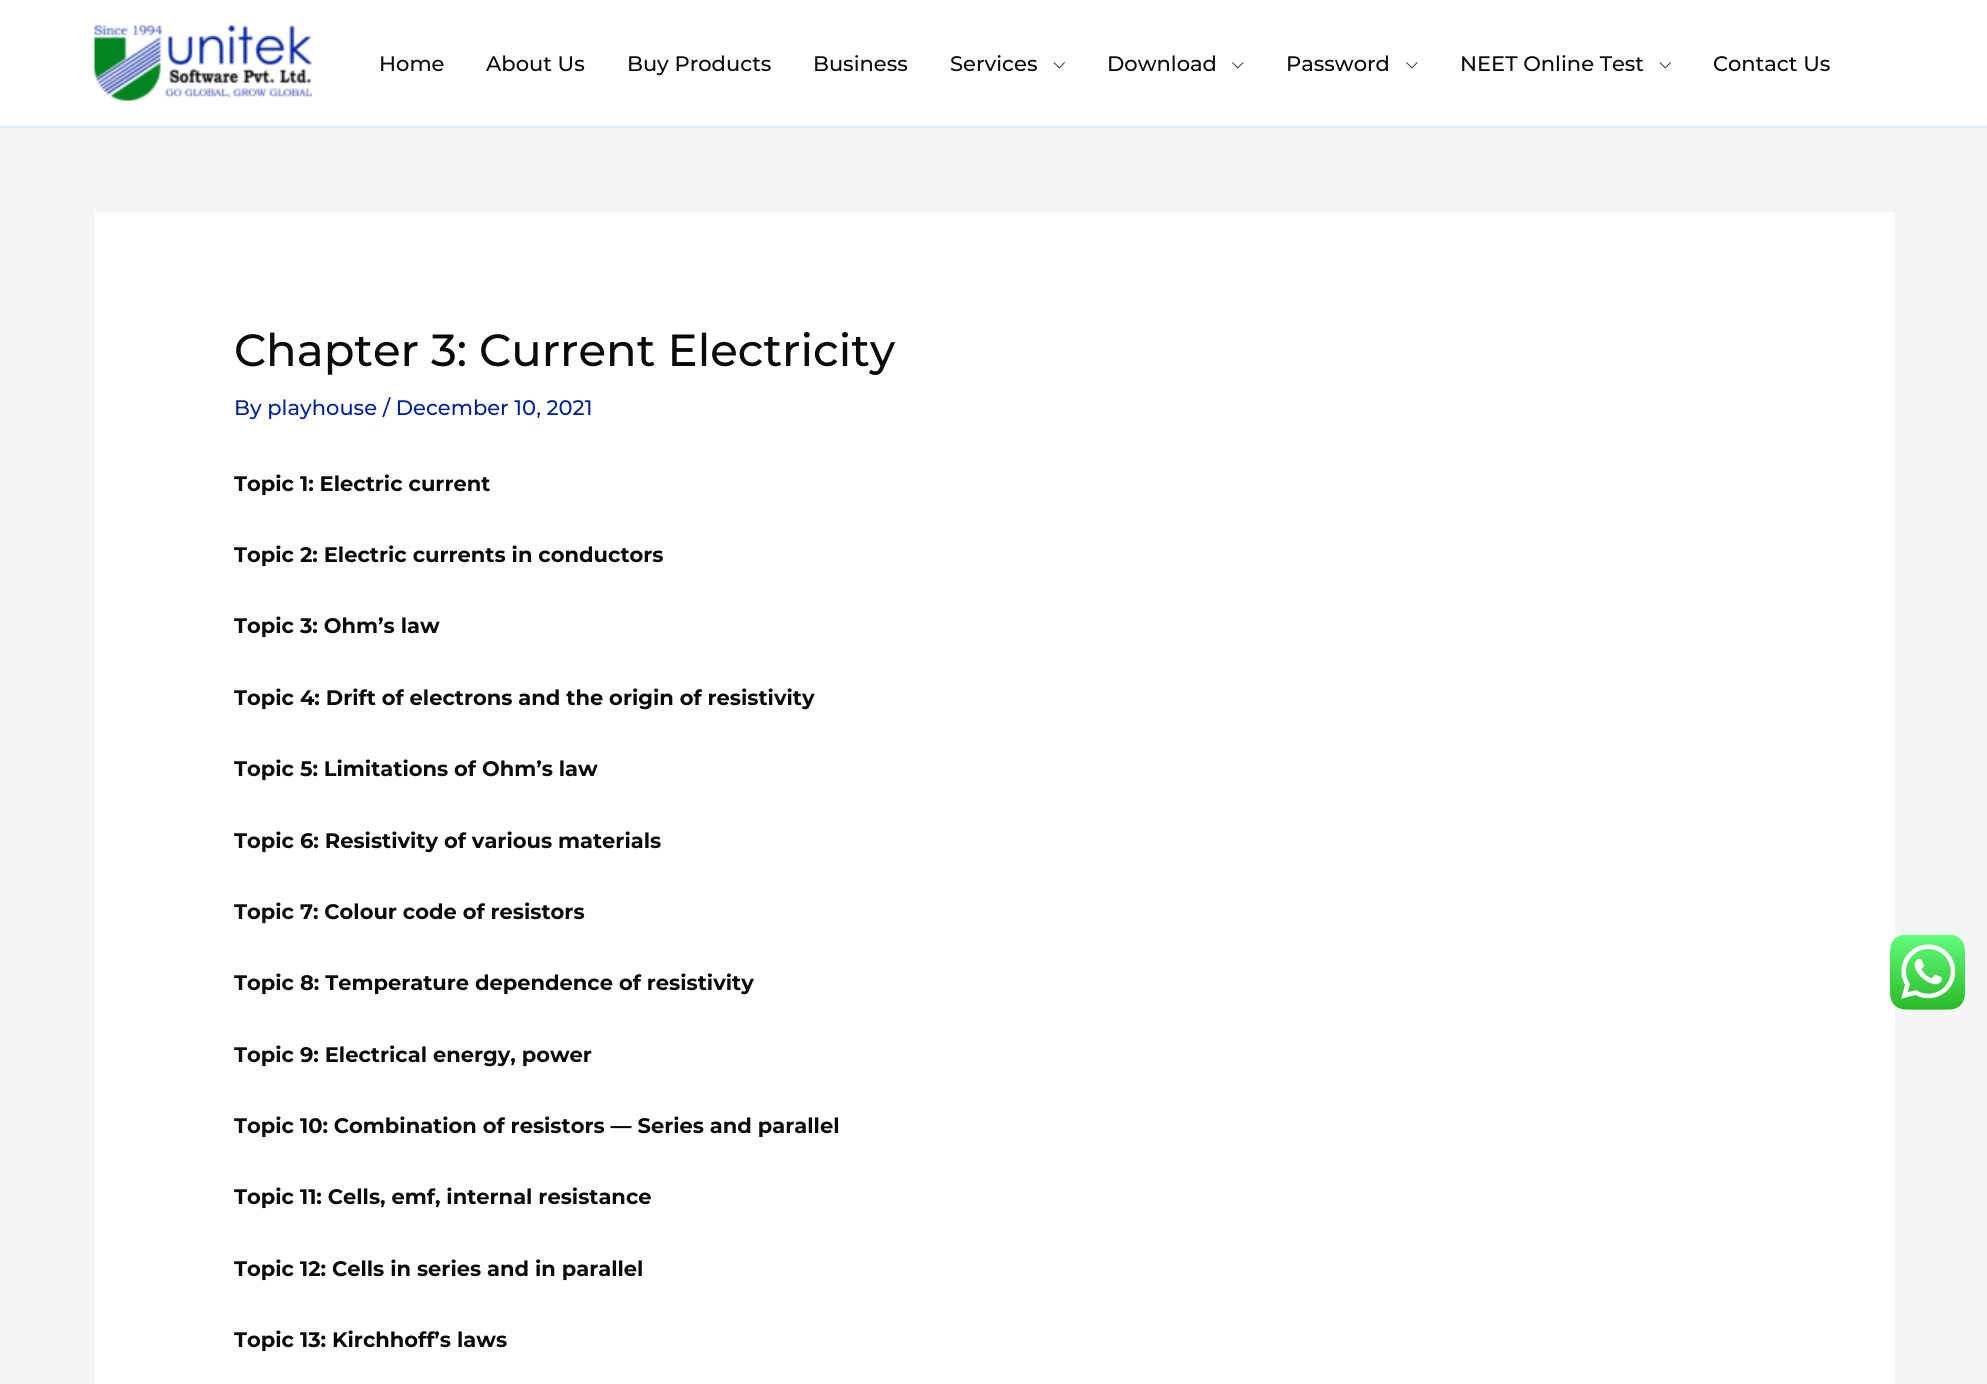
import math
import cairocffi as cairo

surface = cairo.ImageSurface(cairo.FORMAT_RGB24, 1987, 1384)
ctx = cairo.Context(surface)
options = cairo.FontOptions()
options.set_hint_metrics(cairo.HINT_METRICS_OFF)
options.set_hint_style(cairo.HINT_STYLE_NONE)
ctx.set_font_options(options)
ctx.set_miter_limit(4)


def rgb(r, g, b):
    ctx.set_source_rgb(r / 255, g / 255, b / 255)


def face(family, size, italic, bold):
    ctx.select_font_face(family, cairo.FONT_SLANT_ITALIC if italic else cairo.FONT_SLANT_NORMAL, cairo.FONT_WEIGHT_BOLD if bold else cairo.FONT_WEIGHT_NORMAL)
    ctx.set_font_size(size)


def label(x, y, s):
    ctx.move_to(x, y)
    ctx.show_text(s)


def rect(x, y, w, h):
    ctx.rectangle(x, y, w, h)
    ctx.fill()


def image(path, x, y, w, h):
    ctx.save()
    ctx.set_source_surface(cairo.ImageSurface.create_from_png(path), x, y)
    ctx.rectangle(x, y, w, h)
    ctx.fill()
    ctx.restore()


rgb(245, 245, 245)
ctx.paint()
rgb(255, 255, 255)
rect(0, 0, 1987, 126)
rgb(226, 233, 255)
rect(0, 126, 1987, 2)
image('image0.png', 94, 25, 218, 76)
face('Montserrat Medium', 21, 0, 0)
rgb(10, 10, 10)
label(379, 71, 'Home')
label(486, 71, 'About Us')
label(627, 71, 'Buy Products')
label(813, 71, 'Business')
label(950, 71, 'Services')
image('image1.png', 1053, 62, 12, 7)
label(1107, 71, 'Download')
image('image2.png', 1232, 62, 12, 7)
label(1286, 71, 'Password')
image('image2.png', 1406, 62, 12, 7)
label(1460, 71, 'NEET Online Test')
image('image1.png', 1659, 62, 12, 7)
label(1713, 71, 'Contact Us')
rgb(255, 255, 255)
rect(95, 212, 1800, 1172)
face('Montserrat Medium', 45, 0, 0)
rgb(10, 10, 10)
label(234, 366, 'Chapter 3: Current Electricity')
face('Montserrat Medium', 21, 0, 0)
rgb(1, 33, 157)
label(234, 415, 'By playhouse / December 10, 2021')
face('Montserrat', 21, 0, 1)
rgb(10, 10, 10)
label(234, 491, 'Topic 1: Electric current')
label(234, 562, 'Topic 2: Electric currents in conductors')
label(234, 633, 'Topic 3: Ohm’s law')
label(234, 705, 'Topic 4: Drift of electrons and the origin of resistivity')
label(234, 776, 'Topic 5: Limitations of Ohm’s law')
label(234, 848, 'Topic 6: Resistivity of various materials')
label(234, 919, 'Topic 7: Colour code of resistors')
label(234, 990, 'Topic 8: Temperature dependence of resistivity')
label(234, 1062, 'Topic 9: Electrical energy, power')
label(234, 1133, 'Topic 10: Combination of resistors — Series and parallel')
label(234, 1204, 'Topic 11: Cells, emf, internal resistance')
label(234, 1276, 'Topic 12: Cells in series and in parallel')
label(234, 1347, 'Topic 13: Kirchhoff’s laws')
image('image3.png', 1890, 935, 75, 75)
surface.write_to_png('render.png')
